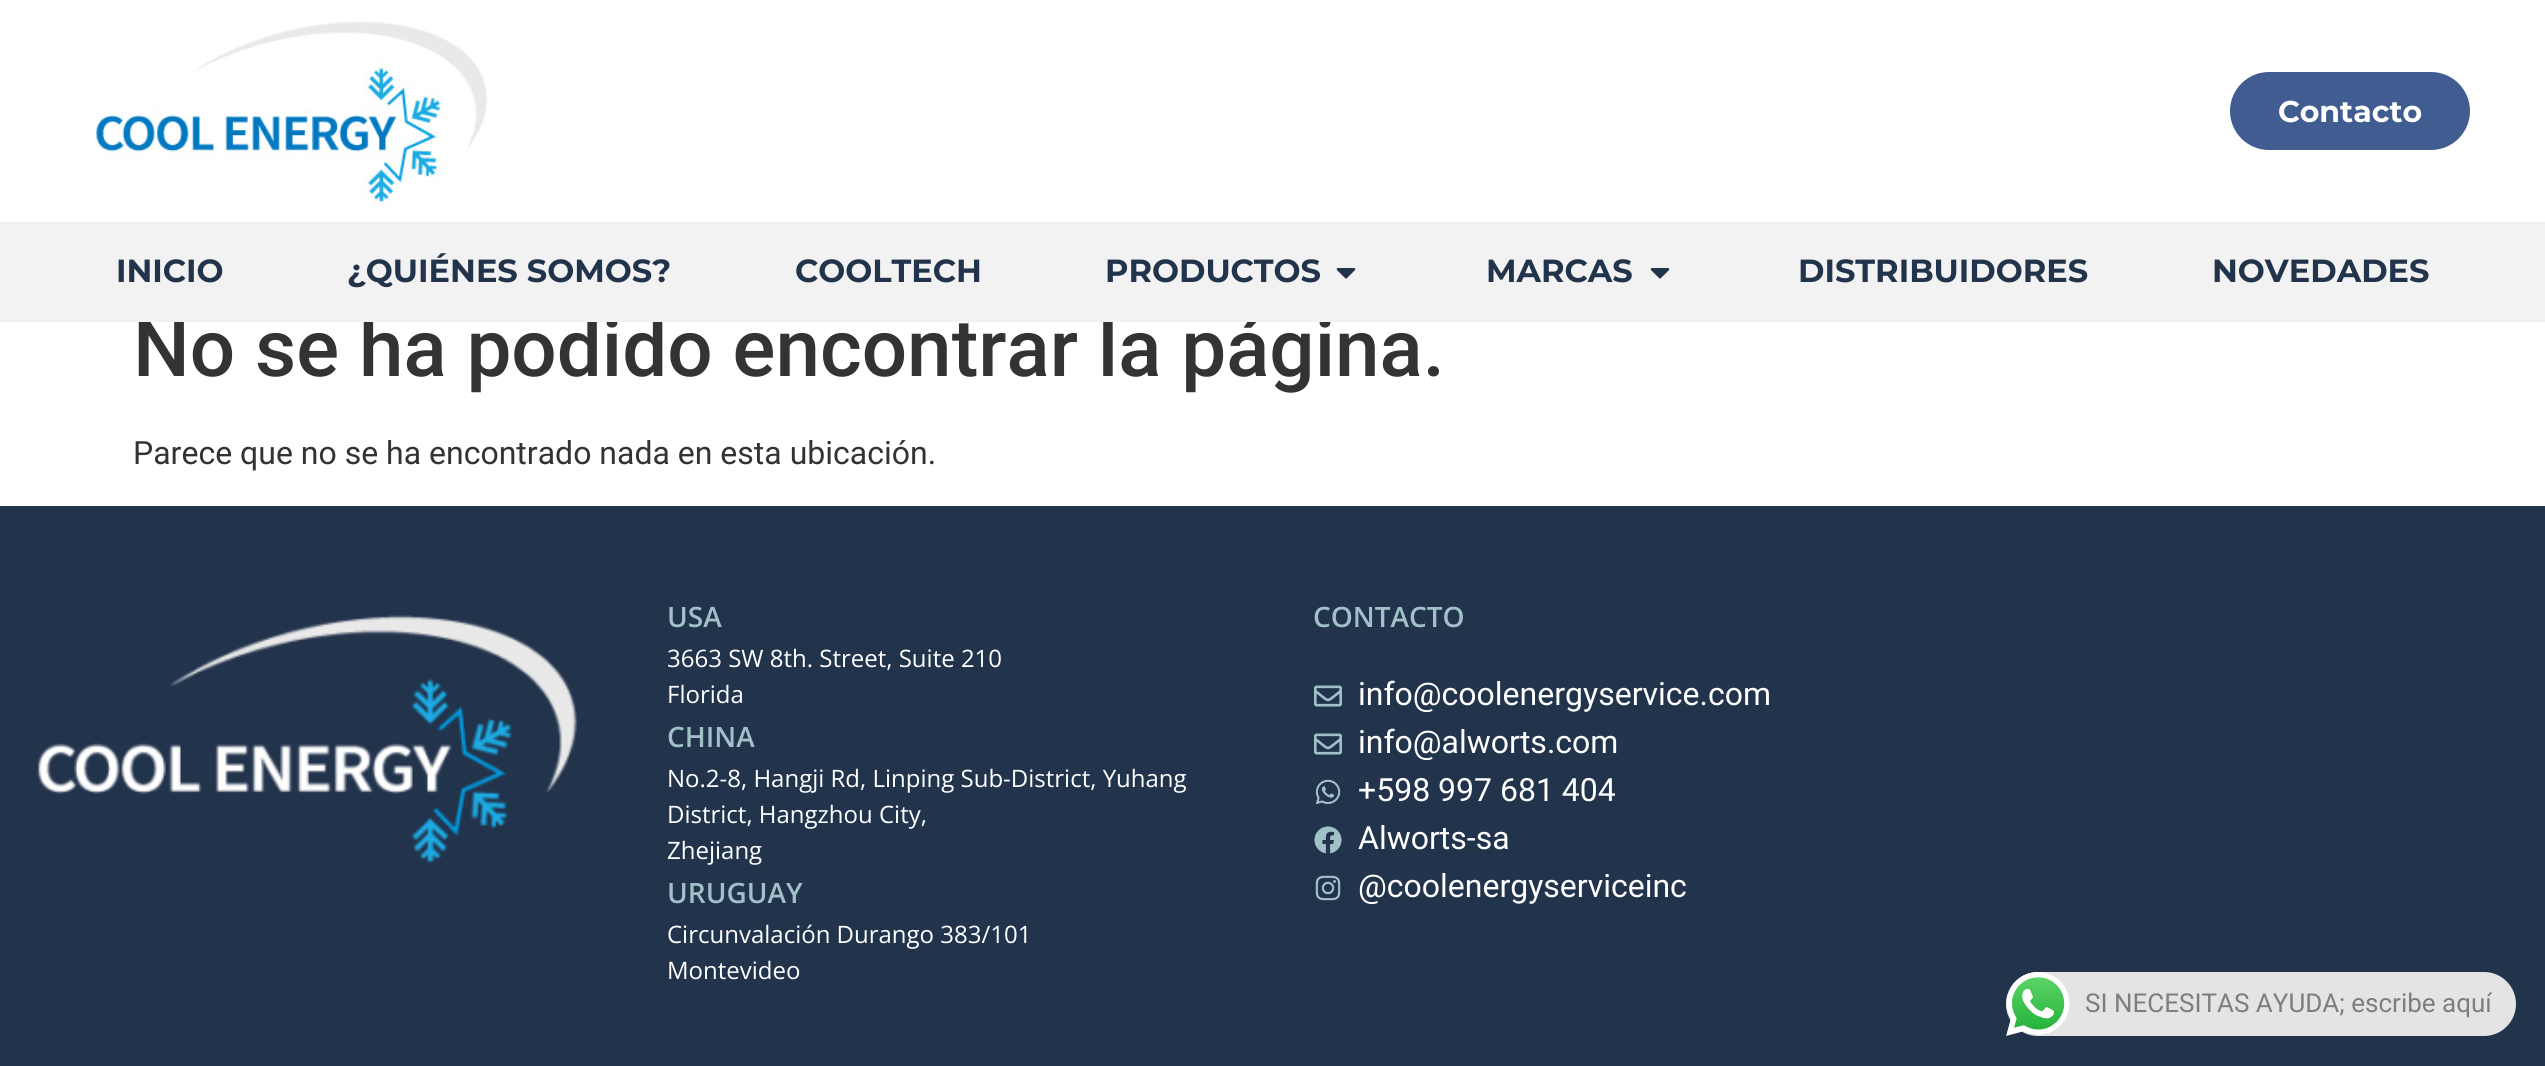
import math
import cairocffi as cairo

surface = cairo.ImageSurface(cairo.FORMAT_RGB24, 2545, 1066)
ctx = cairo.Context(surface)
options = cairo.FontOptions()
options.set_hint_metrics(cairo.HINT_METRICS_OFF)
options.set_hint_style(cairo.HINT_STYLE_NONE)
ctx.set_font_options(options)
ctx.set_miter_limit(4)


def rgb(r, g, b):
    ctx.set_source_rgb(r / 255, g / 255, b / 255)


def face(family, size, italic, bold):
    ctx.select_font_face(family, cairo.FONT_SLANT_ITALIC if italic else cairo.FONT_SLANT_NORMAL, cairo.FONT_WEIGHT_BOLD if bold else cairo.FONT_WEIGHT_NORMAL)
    ctx.set_font_size(size)


def label(x, y, s):
    ctx.move_to(x, y)
    ctx.show_text(s)


def rect(x, y, w, h):
    ctx.rectangle(x, y, w, h)
    ctx.fill()


def rrect(x, y, w, h, r):
    ctx.new_sub_path()
    for i, (u, v) in enumerate([(x + w - r, y + h - r), (x + r, y + h - r), (x + r, y + r), (x + w - r, y + r)]):
        ctx.arc(u, v, r, i * math.pi / 2, (i + 1) * math.pi / 2)
    ctx.close_path()


def image(path, x, y, w, h):
    ctx.save()
    ctx.set_source_surface(cairo.ImageSurface.create_from_png(path), x, y)
    ctx.rectangle(x, y, w, h)
    ctx.fill()
    ctx.restore()


rgb(255, 255, 255)
ctx.paint()
image('image0.png', 95, 21, 392, 187)
rgb(64, 92, 144)
rrect(2230, 72, 240, 78, 39)
ctx.fill()
face('Montserrat', 30, 0, 1)
rgb(255, 255, 255)
label(2278, 122, 'Contacto')
face('Roboto Medium', 80, 0, 0)
rgb(51, 51, 51)
label(133, 376, 'No se ha podido encontrar la página.')
rgb(242, 242, 242)
rect(0, 222, 2545, 100)
face('Montserrat', 32, 0, 1)
rgb(34, 52, 75)
label(116, 282, 'INICIO')
label(347, 282, '¿QUIÉNES SOMOS?')
label(795, 282, 'COOLTECH')
label(1105, 282, 'PRODUCTOS')
image('image1.png', 1336, 268, 20, 11)
label(1486, 282, 'MARCAS')
image('image1.png', 1650, 268, 20, 11)
label(1798, 282, 'DISTRIBUIDORES')
label(2212, 282, 'NOVEDADES')
face('Roboto', 32, 0, 0)
rgb(51, 51, 51)
label(133, 464, 'Parece que no se ha encontrado nada en esta ubicación.')
rgb(34, 51, 76)
rect(0, 506, 2545, 560)
image('image2.png', 37, 615, 541, 249)
face('Open Sans SemiBold', 28, 0, 0)
rgb(160, 193, 200)
label(667, 627, 'USA')
face('Open Sans', 24, 0, 0)
rgb(255, 255, 255)
label(667, 667, '3663 SW 8th. Street, Suite 210')
label(667, 703, 'Florida')
face('Open Sans SemiBold', 28, 0, 0)
rgb(160, 193, 200)
label(667, 747, 'CHINA')
face('Open Sans', 24, 0, 0)
rgb(255, 255, 255)
label(667, 787, 'No.2-8, Hangji Rd, Linping Sub-District, Yuhang')
label(667, 823, 'District, Hangzhou City,')
label(667, 859, 'Zhejiang')
face('Open Sans SemiBold', 28, 0, 0)
rgb(160, 193, 200)
label(667, 903, 'URUGUAY')
face('Open Sans', 24, 0, 0)
rgb(255, 255, 255)
label(667, 943, 'Circunvalación Durango 383/101')
label(667, 979, 'Montevideo')
face('Open Sans SemiBold', 28, 0, 0)
rgb(160, 193, 200)
label(1313, 627, 'CONTACTO')
image('image3.png', 1314, 685, 28, 22)
face('Roboto', 32, 0, 0)
rgb(255, 255, 255)
label(1358, 705, 'info@coolenergyservice.com')
image('image3.png', 1314, 733, 28, 22)
label(1358, 753, 'info@alworts.com')
image('image4.png', 1315, 779, 26, 26)
label(1358, 801, '+598 997 681 404')
image('image5.png', 1314, 826, 28, 28)
label(1358, 849, 'Alworts-sa')
image('image6.png', 1315, 875, 26, 26)
label(1358, 897, '@coolenergyserviceinc')
rgb(228, 228, 228)
rrect(2006, 972, 510, 64, 32)
ctx.fill()
image('image7.png', 2006, 972, 64, 64)
face('Roboto', 26, 0, 0)
rgb(127, 125, 125)
label(2085, 1012, 'SI NECESITAS AYUDA; escribe aquí')
surface.write_to_png('render.png')
